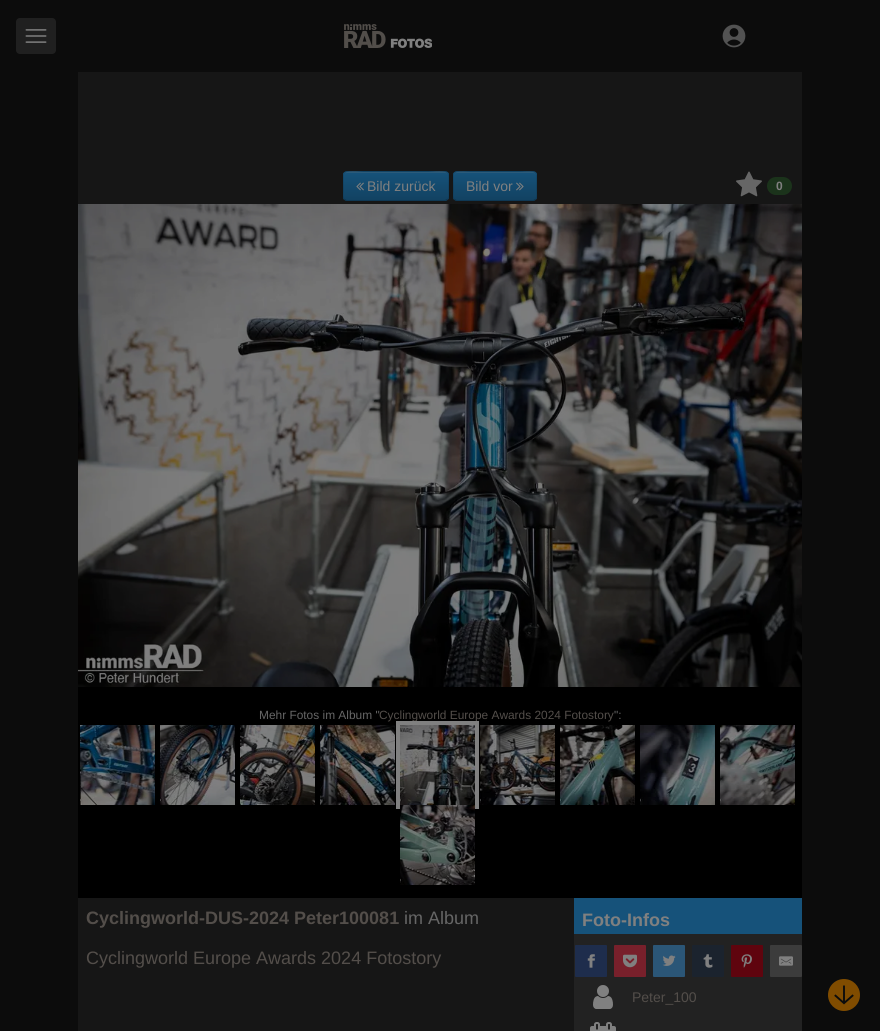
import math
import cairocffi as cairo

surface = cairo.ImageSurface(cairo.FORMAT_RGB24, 880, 1031)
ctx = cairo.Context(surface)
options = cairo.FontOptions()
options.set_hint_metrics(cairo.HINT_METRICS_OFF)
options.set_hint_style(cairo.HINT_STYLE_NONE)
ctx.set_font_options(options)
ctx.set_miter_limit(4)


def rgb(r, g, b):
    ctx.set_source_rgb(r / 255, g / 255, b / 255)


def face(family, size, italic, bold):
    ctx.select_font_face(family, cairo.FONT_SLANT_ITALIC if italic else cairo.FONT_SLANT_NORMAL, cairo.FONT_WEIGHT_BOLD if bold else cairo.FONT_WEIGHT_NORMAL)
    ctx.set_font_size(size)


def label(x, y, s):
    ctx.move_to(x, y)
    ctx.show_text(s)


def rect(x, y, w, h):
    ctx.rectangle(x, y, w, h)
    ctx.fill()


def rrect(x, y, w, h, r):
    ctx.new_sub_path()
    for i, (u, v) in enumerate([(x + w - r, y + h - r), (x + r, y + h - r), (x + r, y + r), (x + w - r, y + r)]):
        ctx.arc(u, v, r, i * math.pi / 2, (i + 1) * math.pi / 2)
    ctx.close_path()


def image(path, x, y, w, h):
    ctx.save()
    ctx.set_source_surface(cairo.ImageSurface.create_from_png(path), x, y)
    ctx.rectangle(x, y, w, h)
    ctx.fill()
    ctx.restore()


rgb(12, 12, 12)
ctx.paint()
rgb(32, 32, 32)
rrect(16, 18, 40, 36, 4)
ctx.fill()
image('image0.png', 25, 29, 22, 14)
image('image1.png', 344, 24, 88, 24)
image('image2.png', 722, 24, 24, 24)
rgb(22, 22, 22)
rect(78, 72, 724, 959)
rgb(20, 75, 112)
rrect(343, 171, 106, 30, 4)
ctx.fill()
ctx.save()
rrect(343, 171, 106, 30, 4)
ctx.clip()
gradient = cairo.LinearGradient(396, 172, 396, 200)
gradient.add_color_stop_rgba(0, 0.086, 0.322, 0.478, 1)
gradient.add_color_stop_rgba(1, 0.071, 0.259, 0.384, 1)
ctx.set_source(gradient)
rect(343, 172, 106, 28)
ctx.restore()
ctx.set_source_rgba(0.502, 0.502, 0.502, 0.2)
ctx.new_path()
ctx.move_to(347, 173)
ctx.line_to(445, 173)
ctx.curve_to(447, 173, 448, 174, 448, 176)
ctx.curve_to(448, 168, 431, 172, 429, 172)
ctx.line_to(363, 172)
ctx.curve_to(361, 172, 344, 168, 344, 176)
ctx.curve_to(344, 174, 345, 173, 347, 173)
ctx.close_path()
ctx.fill()
ctx.new_path()
ctx.move_to(447.5, 199.5)
ctx.line_to(445, 200.5)
ctx.line_to(346.5, 200.5)
ctx.line_to(344.5, 199.5)
ctx.set_source_rgba(0, 0, 0, 0.25)
ctx.set_line_width(1)
ctx.stroke()
ctx.new_path()
ctx.move_to(344.5, 199.5)
ctx.curve_to(342, 197, 343.5, 192.5, 343.5, 189.5)
ctx.curve_to(343.5, 168, 340, 171.5, 363.5, 171.5)
ctx.line_to(428.5, 171.5)
ctx.curve_to(452, 171.5, 448.5, 168, 448.5, 189.5)
ctx.curve_to(448.5, 192.5, 450, 197, 447.5, 199.5)
ctx.set_source_rgba(0, 0, 0, 0.1)
ctx.stroke()
image('image3.png', 356, 182, 8, 9)
face('Liberation Sans', 14, 0, 0)
rgb(128, 128, 128)
label(367, 191, 'Bild zurück')
rgb(20, 75, 112)
rrect(453, 171, 84, 30, 4)
ctx.fill()
ctx.save()
rrect(453, 171, 84, 30, 4)
ctx.clip()
gradient = cairo.LinearGradient(495, 172, 495, 200)
gradient.add_color_stop_rgba(0, 0.086, 0.322, 0.478, 1)
gradient.add_color_stop_rgba(1, 0.071, 0.259, 0.384, 1)
ctx.set_source(gradient)
rect(453, 172, 84, 28)
ctx.restore()
ctx.set_source_rgba(0.502, 0.502, 0.502, 0.2)
ctx.new_path()
ctx.move_to(457, 173)
ctx.line_to(533, 173)
ctx.curve_to(535, 173, 536, 174, 536, 176)
ctx.curve_to(536, 169, 524, 172, 520, 172)
ctx.line_to(470, 172)
ctx.curve_to(466, 172, 454, 169, 454, 176)
ctx.curve_to(454, 174, 455, 173, 457, 173)
ctx.close_path()
ctx.fill()
ctx.new_path()
ctx.move_to(535.5, 199.5)
ctx.line_to(533.5, 200.5)
ctx.line_to(456.5, 200.5)
ctx.line_to(454.5, 199.5)
ctx.set_source_rgba(0, 0, 0, 0.25)
ctx.stroke()
ctx.new_path()
ctx.move_to(454.5, 199.5)
ctx.curve_to(452, 197, 453.5, 192.5, 453.5, 189.5)
ctx.curve_to(453.5, 169.5, 449.5, 171.5, 469.5, 171.5)
ctx.line_to(520.5, 171.5)
ctx.curve_to(538.5, 171.5, 536.5, 169, 536.5, 186)
ctx.curve_to(536.5, 189, 537.5, 197.5, 535.5, 199.5)
ctx.set_source_rgba(0, 0, 0, 0.1)
ctx.stroke()
rgb(128, 128, 128)
label(466, 191, 'Bild vor')
image('image4.png', 516, 182, 8, 9)
image('image5.png', 736, 171, 26, 26)
rgb(27, 51, 27)
rrect(767, 177, 25, 18, 9)
ctx.fill()
face('Liberation Sans', 12, 0, 1)
rgb(128, 128, 128)
label(776, 190, '0')
image('image6.png', 78, 204, 724, 483)
rgb(0, 0, 0)
rect(78, 687, 724, 211)
face('Liberation Sans', 11.9, 0, 0)
rgb(102, 102, 102)
label(259, 719, 'Mehr Fotos im Album "')
rgb(83, 78, 74)
label(379, 719, 'Cyclingworld Europe Awards 2024 Fotostory')
rgb(102, 102, 102)
label(614, 719, '":')
image('image7.png', 80, 725, 75, 80)
image('image8.png', 160, 725, 75, 80)
image('image9.png', 240, 725, 75, 80)
image('image10.png', 320, 725, 75, 80)
image('image11.png', 400, 725, 75, 80)
ctx.rectangle(398, 723, 79, 84)
rgb(128, 128, 128)
ctx.set_line_width(4)
ctx.stroke()
image('image12.png', 480, 725, 75, 80)
image('image13.png', 560, 725, 75, 80)
image('image14.png', 640, 725, 75, 80)
image('image15.png', 720, 725, 75, 80)
image('image16.png', 400, 805, 75, 80)
face('Liberation Sans', 18, 0, 1)
rgb(83, 78, 74)
label(86, 924, 'Cyclingworld-DUS-2024 Peter100081')
face('Liberation Sans', 18, 0, 0)
rgb(102, 102, 102)
label(404, 924, 'im Album')
rgb(83, 78, 74)
label(86, 964, 'Cyclingworld Europe Awards 2024 Fotostory')
rgb(34, 34, 34)
rect(574, 934, 228, 97)
rgb(22, 82, 122)
rect(574, 898, 228, 36)
face('Liberation Sans', 18, 0, 1)
rgb(128, 128, 128)
label(582, 926, 'Foto-Infos')
rgb(30, 45, 76)
rrect(575, 945, 32, 32, 1)
ctx.fill()
image('image17.png', 587, 954, 8, 14)
rgb(120, 32, 43)
rrect(614, 945, 32, 32, 1)
ctx.fill()
image('image18.png', 623, 954, 14, 14)
rgb(43, 86, 119)
rrect(653, 945, 32, 32, 1)
ctx.fill()
image('image19.png', 662, 955, 14, 11)
rgb(27, 35, 46)
rrect(692, 945, 32, 32, 1)
ctx.fill()
image('image20.png', 703, 954, 10, 14)
rgb(95, 4, 14)
rrect(731, 945, 32, 32, 1)
ctx.fill()
image('image21.png', 741, 954, 11, 14)
rgb(60, 60, 60)
rrect(770, 945, 32, 32, 1)
ctx.fill()
image('image22.png', 779, 956, 14, 10)
image('image23.png', 593, 985, 20, 24)
face('Liberation Sans', 14, 0, 0)
rgb(83, 78, 74)
label(632, 1002, 'Peter_100')
image('image24.png', 590, 1022, 26, 9)
image('image25.png', 828, 979, 32, 32)
surface.write_to_png('render.png')
